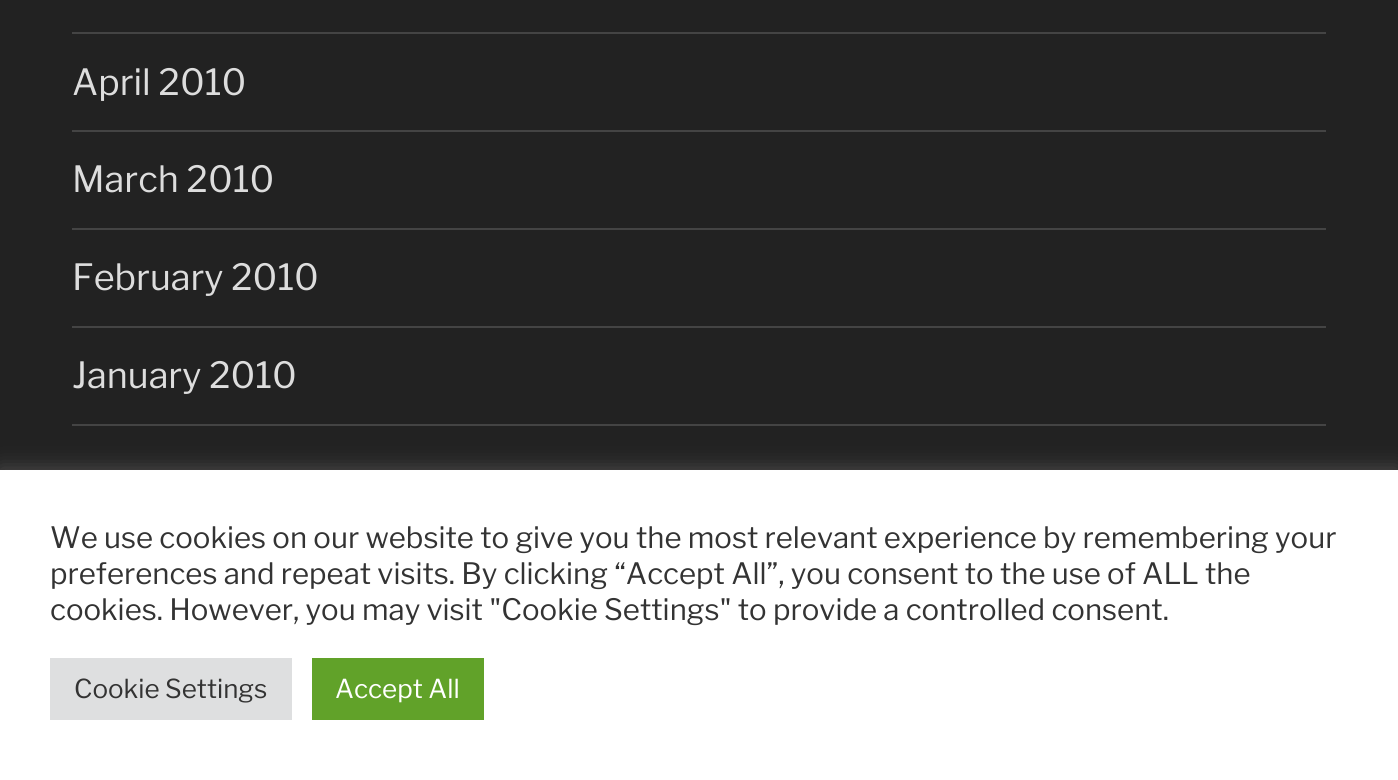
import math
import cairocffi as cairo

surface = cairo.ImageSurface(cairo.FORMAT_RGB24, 1398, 780)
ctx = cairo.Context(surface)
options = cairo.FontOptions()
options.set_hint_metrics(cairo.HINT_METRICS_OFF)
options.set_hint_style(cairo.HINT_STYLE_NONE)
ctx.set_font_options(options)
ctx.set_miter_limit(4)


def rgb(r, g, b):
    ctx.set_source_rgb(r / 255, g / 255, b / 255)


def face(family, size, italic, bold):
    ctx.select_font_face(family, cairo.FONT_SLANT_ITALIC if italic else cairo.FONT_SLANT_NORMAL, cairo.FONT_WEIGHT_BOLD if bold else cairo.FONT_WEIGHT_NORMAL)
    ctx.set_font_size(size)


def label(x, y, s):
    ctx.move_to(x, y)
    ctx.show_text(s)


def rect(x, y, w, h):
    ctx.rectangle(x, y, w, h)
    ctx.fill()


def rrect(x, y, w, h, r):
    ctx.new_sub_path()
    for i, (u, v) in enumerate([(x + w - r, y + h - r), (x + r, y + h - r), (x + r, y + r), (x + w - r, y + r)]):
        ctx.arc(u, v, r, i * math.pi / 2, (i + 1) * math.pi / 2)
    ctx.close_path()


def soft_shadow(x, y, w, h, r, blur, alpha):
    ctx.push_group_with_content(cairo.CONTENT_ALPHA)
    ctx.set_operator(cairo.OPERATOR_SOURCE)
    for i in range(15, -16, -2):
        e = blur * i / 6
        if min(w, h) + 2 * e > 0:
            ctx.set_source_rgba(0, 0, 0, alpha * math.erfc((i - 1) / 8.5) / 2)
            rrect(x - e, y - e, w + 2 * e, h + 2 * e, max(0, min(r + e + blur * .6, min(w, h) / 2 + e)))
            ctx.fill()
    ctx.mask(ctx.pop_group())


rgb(34, 34, 34)
ctx.paint()
rgb(68, 68, 68)
rect(72, 32, 1254, 2)
rect(72, 130, 1254, 2)
face('Libre Franklin', 36, 0, 0)
rgb(221, 221, 221)
label(72, 95, 'April 2010')
rgb(68, 68, 68)
rect(72, 228, 1254, 2)
rgb(221, 221, 221)
label(72, 192, 'March 2010')
rgb(68, 68, 68)
rect(72, 326, 1254, 2)
rgb(221, 221, 221)
label(72, 290, 'February 2010')
rgb(68, 68, 68)
rect(72, 424, 1254, 2)
rgb(221, 221, 221)
label(72, 388, 'January 2010')
rgb(172, 171, 171)
soft_shadow(0, 468, 1398, 310, 0, 10, 0.3)
rgb(255, 255, 255)
rect(0, 470, 1398, 310)
face('Libre Franklin', 29.35, 0, 0)
rgb(51, 51, 51)
label(50, 548, 'We use cookies on our website to give you the most relevant experience by remembering your')
label(50, 584, 'preferences and repeat visits. By clicking “Accept All”, you consent to the use of ALL the')
label(50, 620, 'cookies. However, you may visit "Cookie Settings" to provide a controlled consent.')
rgb(222, 223, 224)
rect(50, 658, 242, 62)
face('Libre Franklin', 26, 0, 0)
rgb(51, 51, 51)
label(74, 698, 'Cookie Settings')
rgb(97, 162, 41)
rect(312, 658, 172, 62)
rgb(255, 255, 255)
label(335, 698, 'Accept All')
surface.write_to_png('render.png')
